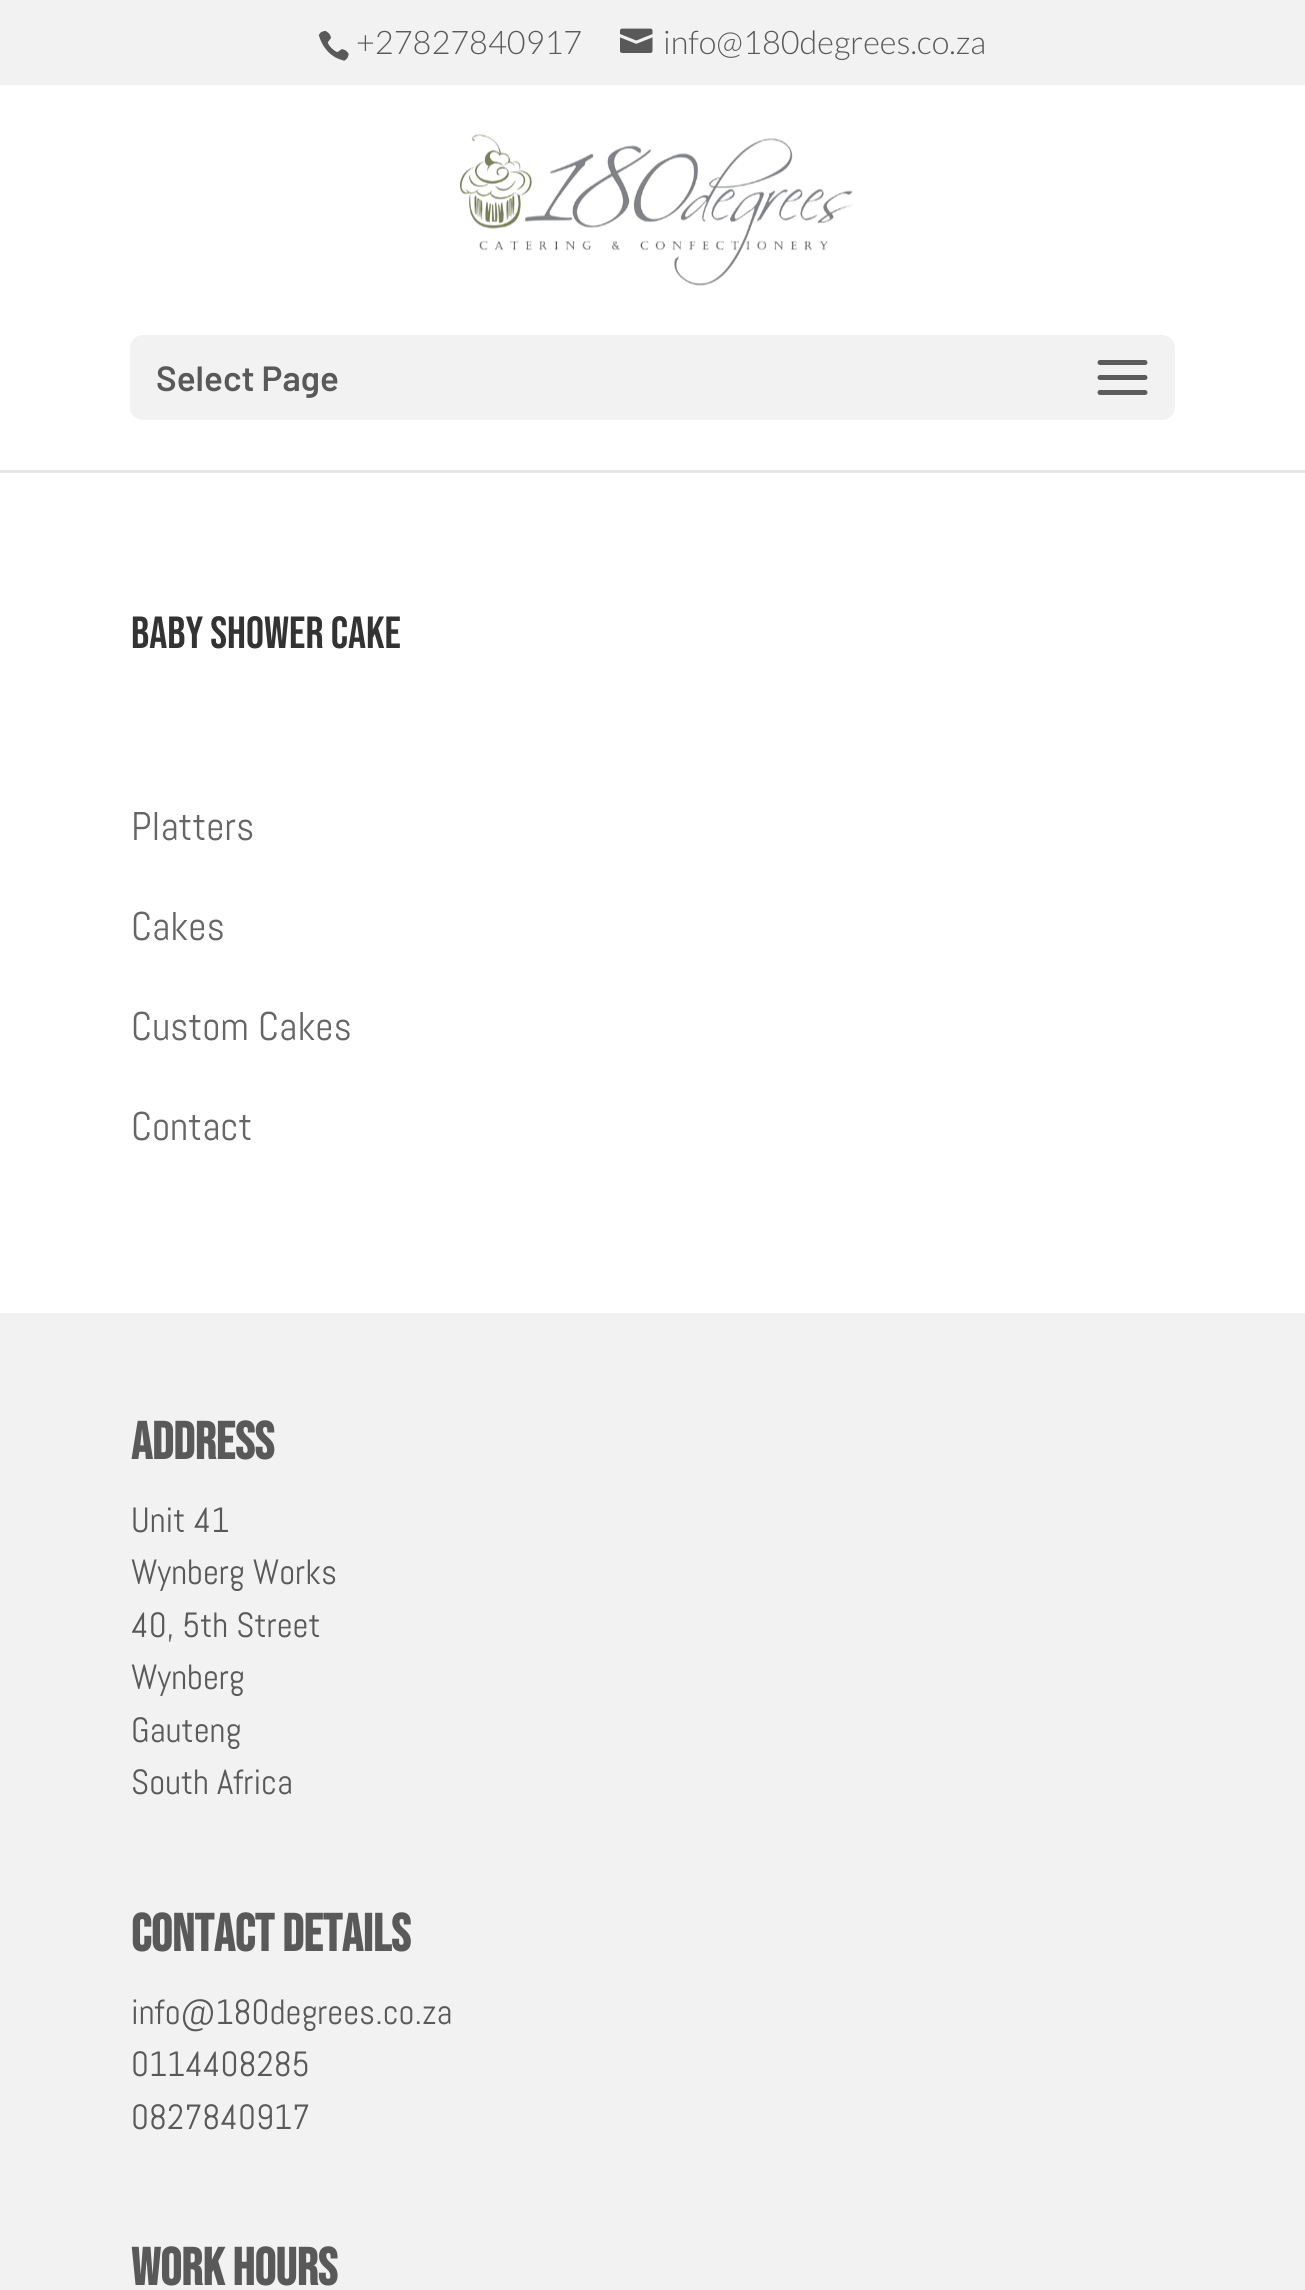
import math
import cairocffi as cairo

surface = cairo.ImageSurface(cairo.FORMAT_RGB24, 1305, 2290)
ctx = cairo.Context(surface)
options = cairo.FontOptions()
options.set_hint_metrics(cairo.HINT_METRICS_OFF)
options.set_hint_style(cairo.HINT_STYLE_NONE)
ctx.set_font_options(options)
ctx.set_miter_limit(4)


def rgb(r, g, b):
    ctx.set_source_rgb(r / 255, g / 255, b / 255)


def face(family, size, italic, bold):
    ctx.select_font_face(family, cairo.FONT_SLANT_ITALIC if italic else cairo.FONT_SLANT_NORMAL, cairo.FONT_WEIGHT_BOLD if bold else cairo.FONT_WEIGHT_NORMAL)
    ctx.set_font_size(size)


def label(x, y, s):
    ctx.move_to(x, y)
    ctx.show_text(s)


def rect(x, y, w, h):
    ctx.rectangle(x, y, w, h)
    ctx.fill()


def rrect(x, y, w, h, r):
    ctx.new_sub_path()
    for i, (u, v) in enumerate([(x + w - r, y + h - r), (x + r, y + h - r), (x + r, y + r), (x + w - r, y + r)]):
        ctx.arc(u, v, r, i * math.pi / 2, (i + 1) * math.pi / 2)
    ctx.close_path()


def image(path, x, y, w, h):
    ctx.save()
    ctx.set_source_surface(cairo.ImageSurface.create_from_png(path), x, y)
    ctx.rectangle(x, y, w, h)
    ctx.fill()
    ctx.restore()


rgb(255, 255, 255)
ctx.paint()
rgb(242, 242, 242)
rect(0, 0, 1305, 85)
image('image0.png', 318, 30, 31, 31)
face('Lato Light', 32.5, 0, 0)
rgb(89, 89, 89)
label(356, 54, '+27827840917')
image('image1.png', 620, 28, 33, 25)
label(663, 54, 'info@180degrees.co.za')
rgb(230, 230, 230)
rect(0, 470, 1305, 3)
image('image2.png', 460, 134, 393, 152)
rgb(242, 242, 242)
rrect(130, 335, 1045, 85, 13)
ctx.fill()
face('Barlow SemiBold', 35, 0, 0)
rgb(89, 89, 89)
label(156, 391, 'Select Page')
image('image3.png', 1097, 360, 51, 35)
face('Bebas Neue', 45, 0, 0)
rgb(51, 51, 51)
label(131, 648, 'Baby Shower Cake')
face('Abel', 40, 0, 0)
rgb(102, 102, 102)
label(131, 840, 'Platters')
label(131, 940, 'Cakes')
label(131, 1040, 'Custom Cakes')
label(131, 1140, 'Contact')
rgb(242, 242, 242)
rect(0, 1313, 1305, 977)
face('Bebas Neue', 52.5, 0, 1)
rgb(89, 89, 89)
label(131, 1459, 'Address')
face('Abel', 35, 0, 0)
label(131, 1532, 'Unit 41')
label(131, 1584, 'Wynberg Works')
label(131, 1637, '40, 5th Street')
label(131, 1689, 'Wynberg')
label(131, 1742, 'Gauteng')
label(131, 1794, 'South Africa')
face('Bebas Neue', 52.5, 0, 1)
label(131, 1951, 'Contact Details')
face('Abel', 35, 0, 0)
label(131, 2024, 'info@180degrees.co.za')
label(131, 2076, '0114408285')
label(131, 2129, '0827840917')
face('Bebas Neue', 52.5, 0, 1)
label(131, 2285, 'Work Hours')
surface.write_to_png('render.png')
